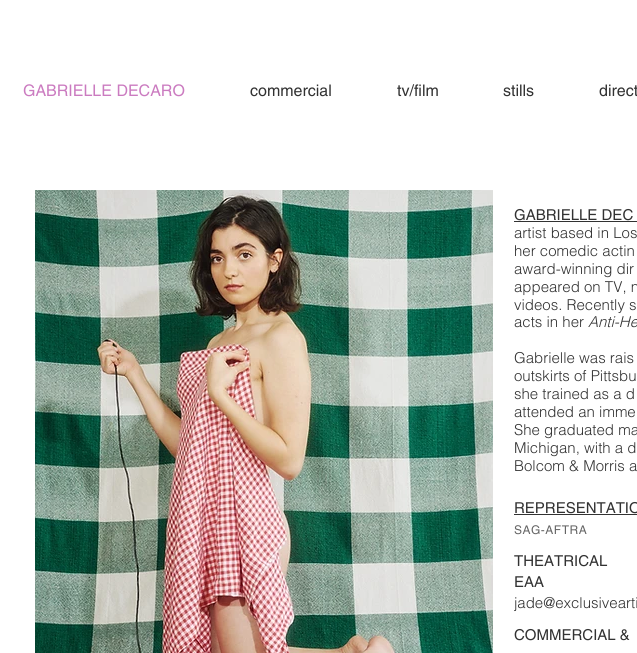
import math
import cairocffi as cairo

surface = cairo.ImageSurface(cairo.FORMAT_RGB24, 637, 653)
ctx = cairo.Context(surface)
options = cairo.FontOptions()
options.set_hint_metrics(cairo.HINT_METRICS_OFF)
options.set_hint_style(cairo.HINT_STYLE_NONE)
ctx.set_font_options(options)
ctx.set_miter_limit(4)


def rgb(r, g, b):
    ctx.set_source_rgb(r / 255, g / 255, b / 255)


def face(family, size, italic, bold):
    ctx.select_font_face(family, cairo.FONT_SLANT_ITALIC if italic else cairo.FONT_SLANT_NORMAL, cairo.FONT_WEIGHT_BOLD if bold else cairo.FONT_WEIGHT_NORMAL)
    ctx.set_font_size(size)


def label(x, y, s):
    ctx.move_to(x, y)
    ctx.show_text(s)


def tracked(x, y, s, letter, word):
    ctx.move_to(x, y)
    for ch in s:
        ctx.show_text(ch)
        ctx.rel_move_to(letter + word * (ch == ' '), 0)


def rect(x, y, w, h):
    ctx.rectangle(x, y, w, h)
    ctx.fill()


def image(path, x, y, w, h):
    ctx.save()
    ctx.set_source_surface(cairo.ImageSurface.create_from_png(path), x, y)
    ctx.rectangle(x, y, w, h)
    ctx.fill()
    ctx.restore()


rgb(255, 255, 255)
ctx.paint()
face('helvetica', 16, 0, 0)
rgb(203, 123, 192)
label(23, 96, 'GABRIELLE DECARO')
rgb(50, 50, 50)
label(250, 96, 'commercial')
label(397, 96, 'tv/film')
label(503, 96, 'stills')
label(599, 96, 'direct')
image('image0.png', 35, 190, 458, 463)
face('helvetica', 15, 0, 0)
label(514, 220, 'GABRIELLE DEC')
rect(514, 221, 123, 1)
face('helvetica Light', 15, 0, 0)
label(514, 238, 'artist based in Los')
label(514, 256, 'her comedic actin')
label(514, 274, 'award-winning dir')
label(514, 292, 'appeared on TV, n')
label(514, 310, 'videos. Recently s')
label(514, 327, 'acts in her')
face('helvetica Light', 15, 1, 0)
label(588, 327, 'Anti-He')
face('helvetica Light', 15, 0, 0)
label(514, 363, 'Gabrielle was rais')
label(514, 381, 'outskirts of Pittsbu')
label(514, 399, 'she trained as a d')
label(514, 417, 'attended an imme')
label(514, 435, 'She graduated ma')
label(514, 453, 'Michigan, with a d')
label(514, 471, 'Bolcom & Morris a')
face('helvetica', 15, 0, 0)
label(514, 513, 'REPRESENTATIO')
rect(514, 514, 123, 1)
face('helvetica', 12, 0, 0)
rgb(101, 101, 101)
tracked(514, 534, 'SAG-AFTRA', 0.5, 0)
face('helvetica', 15, 0, 0)
rgb(50, 50, 50)
label(514, 566, 'THEATRICAL')
label(514, 587, 'EAA')
face('helvetica Light', 15, 0, 0)
label(514, 608, 'jade@exclusivearti')
face('helvetica', 15, 0, 0)
label(514, 640, 'COMMERCIAL &')
surface.write_to_png('render.png')
